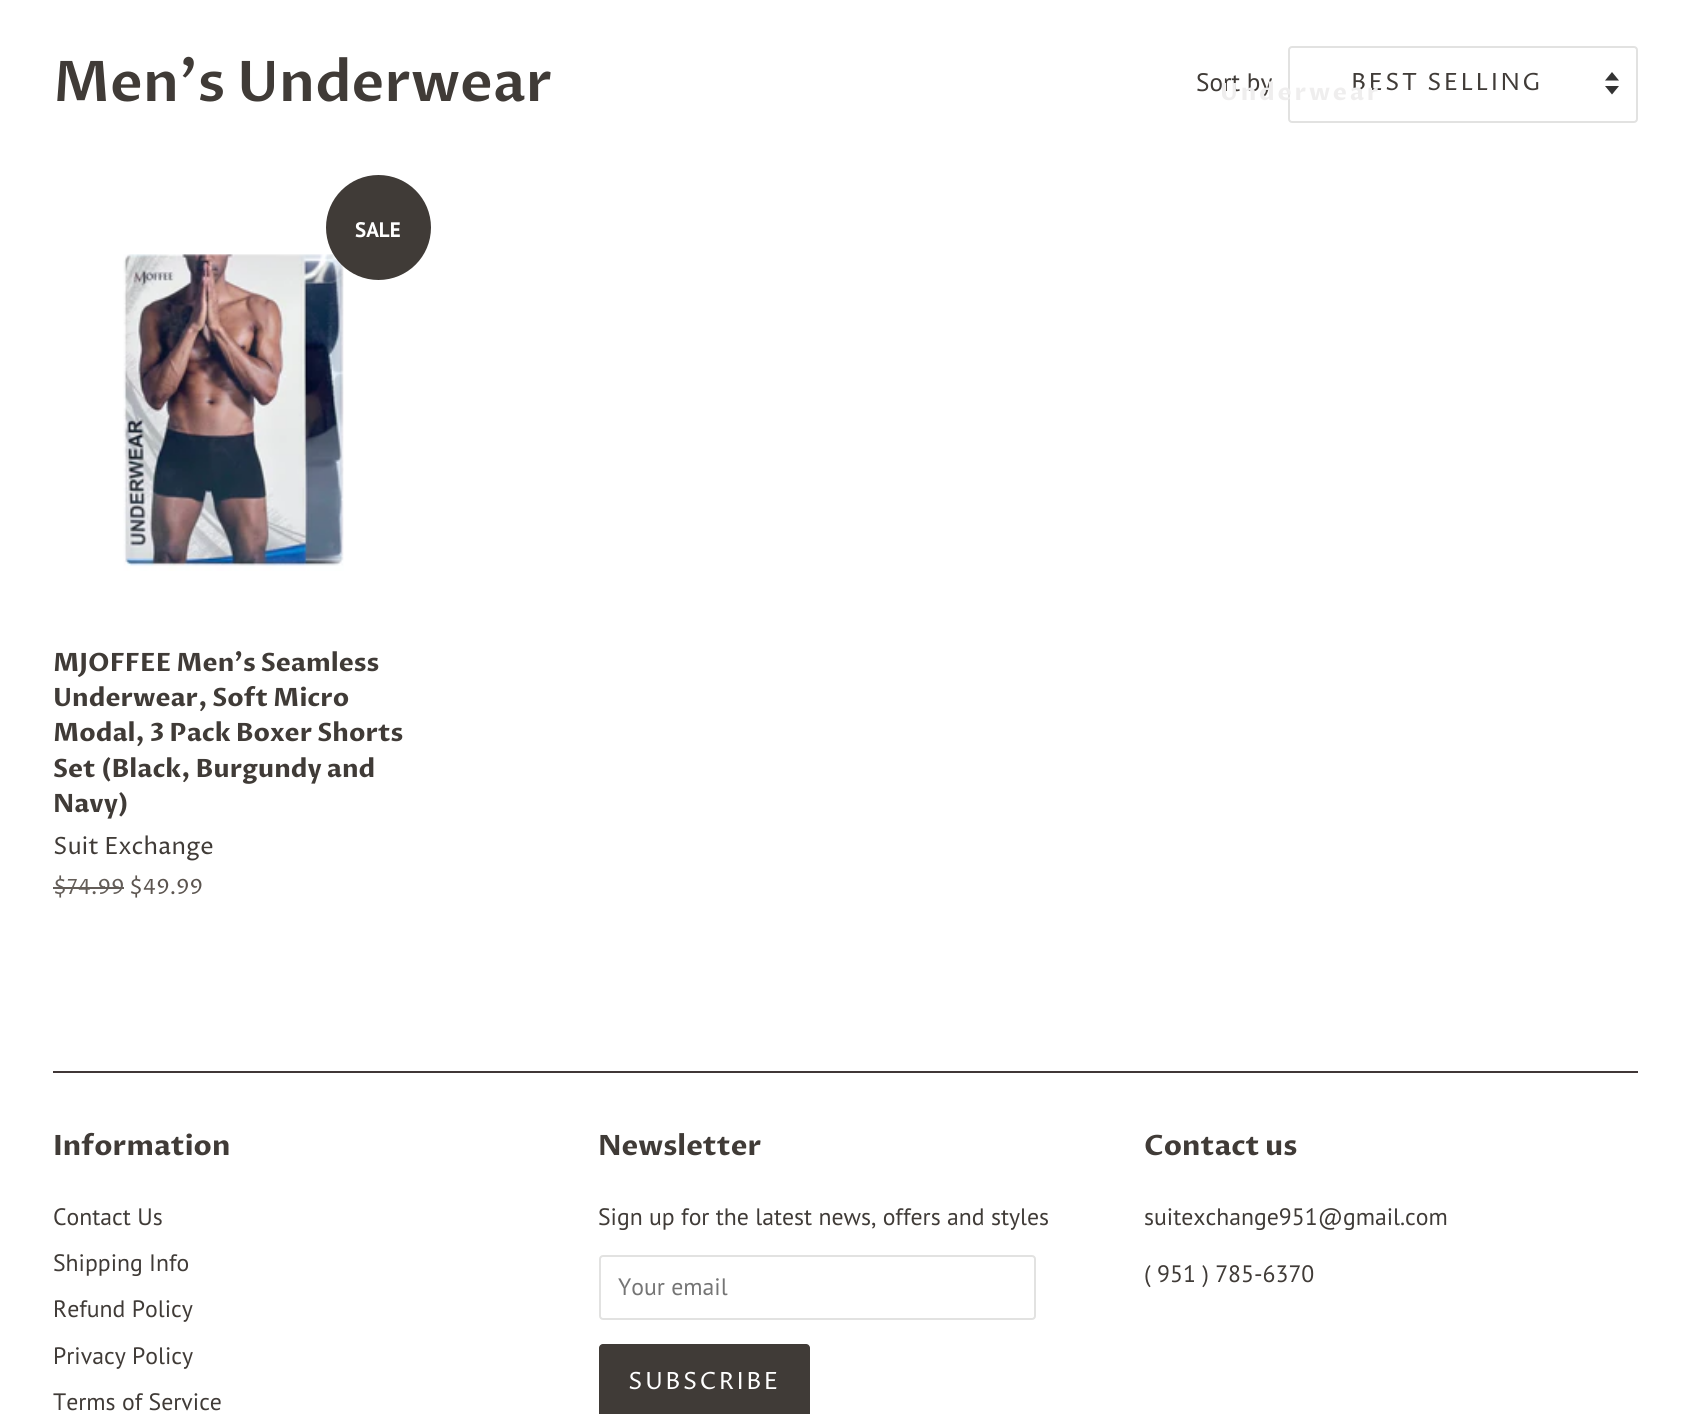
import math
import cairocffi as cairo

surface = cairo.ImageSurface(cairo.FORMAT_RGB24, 1690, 1414)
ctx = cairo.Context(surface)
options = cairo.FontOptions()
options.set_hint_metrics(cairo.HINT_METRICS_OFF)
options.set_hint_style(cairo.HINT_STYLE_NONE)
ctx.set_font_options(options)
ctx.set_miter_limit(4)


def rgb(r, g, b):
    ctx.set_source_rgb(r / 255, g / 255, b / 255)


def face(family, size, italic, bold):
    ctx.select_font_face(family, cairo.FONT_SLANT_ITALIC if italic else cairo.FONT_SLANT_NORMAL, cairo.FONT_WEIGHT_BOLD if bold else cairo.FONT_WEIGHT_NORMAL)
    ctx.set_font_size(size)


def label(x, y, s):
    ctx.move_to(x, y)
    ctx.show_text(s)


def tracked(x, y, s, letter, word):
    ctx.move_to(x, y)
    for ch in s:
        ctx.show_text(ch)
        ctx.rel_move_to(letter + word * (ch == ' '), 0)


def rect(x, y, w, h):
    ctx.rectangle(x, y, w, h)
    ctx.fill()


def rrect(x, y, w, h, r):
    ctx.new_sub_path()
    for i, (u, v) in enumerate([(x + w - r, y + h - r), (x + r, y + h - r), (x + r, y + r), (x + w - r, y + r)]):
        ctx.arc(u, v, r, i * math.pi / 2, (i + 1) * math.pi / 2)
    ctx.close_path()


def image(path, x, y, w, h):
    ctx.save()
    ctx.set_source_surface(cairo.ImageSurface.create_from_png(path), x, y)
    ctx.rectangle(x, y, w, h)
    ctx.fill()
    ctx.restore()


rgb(255, 255, 255)
ctx.paint()
face('Proza Libre SemiBold', 56, 0, 0)
rgb(64, 59, 55)
label(53, 101, 'Men\'s Underwear')
face('PT Sans', 25.25, 0, 0)
label(1196, 91, 'Sort by')
rgb(51, 51, 51)
ctx.new_path()
ctx.move_to(1605, 86)
ctx.line_to(1612, 94.5)
ctx.line_to(1619, 86)
ctx.close_path()
ctx.move_to(1612, 72)
ctx.line_to(1605, 80.5)
ctx.line_to(1619, 80.5)
ctx.close_path()
ctx.fill()
rrect(1289, 47, 348, 75, 3)
rgb(226, 226, 225)
ctx.stroke()
face('Proza Libre', 23.75, 0, 0)
rgb(64, 59, 55)
tracked(1351, 90, 'BEST SELLING', 2.4, 0)
image('image0.png', 123, 254, 221, 317)
ctx.arc(378.5, 227.5, 52.5, 0, 2 * math.pi)
ctx.fill()
face('PT Sans', 21, 0, 1)
rgb(255, 255, 255)
label(355, 237, 'SALE')
face('Proza Libre', 25.25, 0, 1)
rgb(64, 59, 55)
label(53, 671, 'MJOFFEE Men\'s Seamless')
label(53, 706, 'Underwear, Soft Micro')
label(53, 741, 'Modal, 3 Pack Boxer Shorts')
label(53, 777, 'Set (Black, Burgundy and')
label(53, 812, 'Navy)')
face('Proza Libre', 23.75, 0, 0)
label(53, 854, 'Suit Exchange')
face('Proza Libre', 21, 0, 0)
rgb(99, 93, 88)
label(53, 894, '$74.99')
rect(53, 887, 71, 2)
rgb(91, 84, 79)
label(129, 894, '$49.99')
rgb(64, 55, 55)
rect(53, 1071, 1585, 2)
face('Proza Libre', 23.75, 0, 1)
rgb(239, 238, 238)
tracked(1220, 100, 'Underwear', 2.75, 0)
face('Proza Libre', 28, 0, 1)
rgb(64, 59, 55)
label(53, 1155, 'Information')
face('PT Sans', 23.75, 0, 0)
label(53, 1225, 'Contact Us')
label(53, 1271, 'Shipping Info')
label(53, 1317, 'Refund Policy')
label(53, 1364, 'Privacy Policy')
label(53, 1410, 'Terms of Service')
face('Proza Libre', 28, 0, 1)
label(598, 1155, 'Newsletter')
face('PT Sans', 23.75, 0, 0)
label(598, 1225, 'Sign up for the latest news, offers and styles')
rrect(600, 1256, 435, 63, 3)
rgb(226, 226, 225)
ctx.stroke()
rgb(117, 117, 117)
label(618, 1295, 'Your email')
rgb(64, 59, 55)
rrect(599, 1344, 211, 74, 4)
ctx.fill()
face('Proza Libre', 23.75, 0, 0)
rgb(255, 255, 255)
tracked(628, 1389, 'SUBSCRIBE', 2.4, 0)
face('Proza Libre', 28, 0, 1)
rgb(64, 59, 55)
label(1144, 1155, 'Contact us')
face('PT Sans', 23.75, 0, 0)
label(1144, 1225, 'suitexchange951@gmail.com')
label(1144, 1282, '( 951 ) 785-6370')
surface.write_to_png('render.png')
